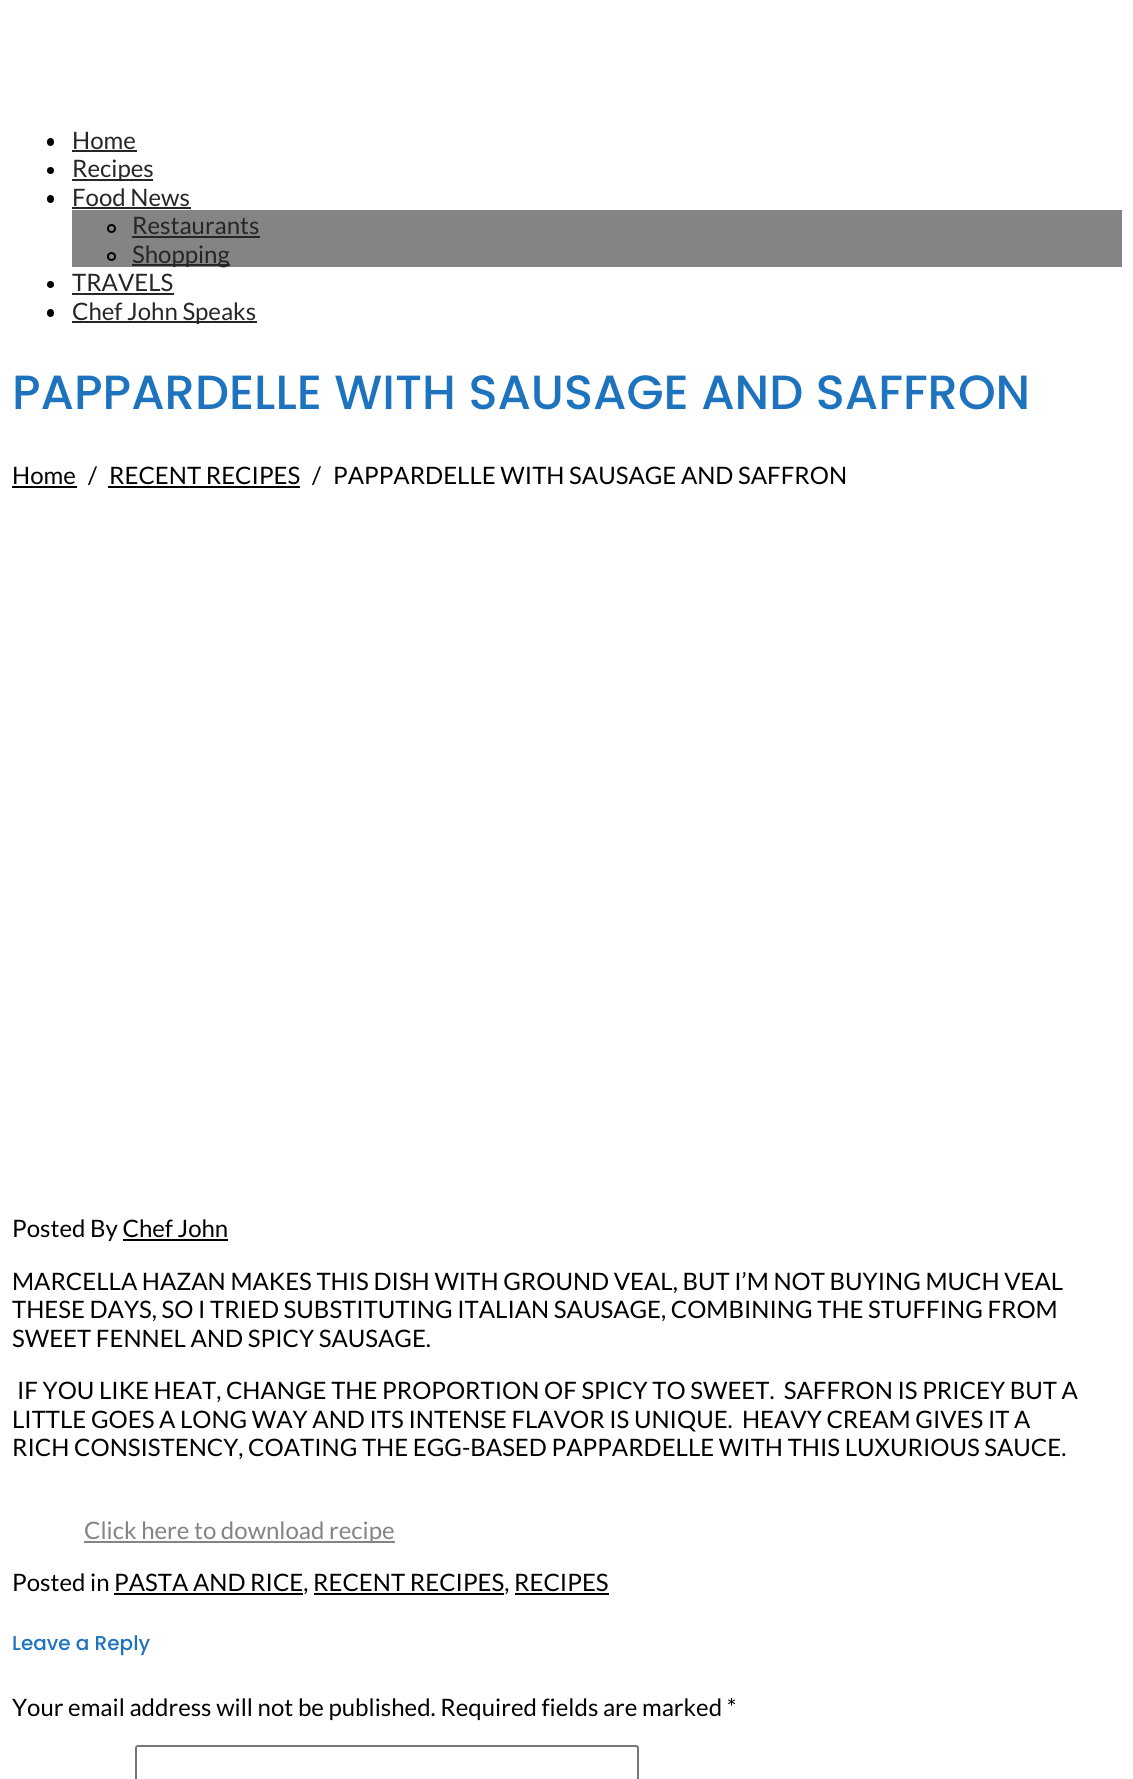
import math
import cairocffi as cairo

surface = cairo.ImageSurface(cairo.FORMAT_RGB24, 1133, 1779)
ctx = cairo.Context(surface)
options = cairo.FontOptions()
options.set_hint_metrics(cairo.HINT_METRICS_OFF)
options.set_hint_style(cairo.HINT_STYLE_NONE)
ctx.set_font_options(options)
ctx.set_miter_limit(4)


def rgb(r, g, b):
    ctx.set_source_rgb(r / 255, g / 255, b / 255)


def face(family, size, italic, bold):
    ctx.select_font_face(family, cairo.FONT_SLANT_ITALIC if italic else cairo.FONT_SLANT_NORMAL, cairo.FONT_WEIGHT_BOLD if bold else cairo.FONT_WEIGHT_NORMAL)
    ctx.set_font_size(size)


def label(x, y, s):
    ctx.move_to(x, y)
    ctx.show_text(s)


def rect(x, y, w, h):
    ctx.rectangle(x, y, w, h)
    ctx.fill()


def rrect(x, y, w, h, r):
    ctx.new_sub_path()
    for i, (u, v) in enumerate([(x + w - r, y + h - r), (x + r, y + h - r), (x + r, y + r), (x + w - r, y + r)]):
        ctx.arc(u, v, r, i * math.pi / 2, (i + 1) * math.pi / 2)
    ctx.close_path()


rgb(255, 255, 255)
ctx.paint()
rgb(0, 0, 0)
rrect(47, 138, 7, 8, 3.5)
ctx.fill()
face('Lato', 24, 0, 0)
rgb(38, 38, 38)
label(72, 149, 'Home')
rect(72, 150, 65, 2)
rgb(0, 0, 0)
ctx.new_path()
ctx.arc(50.5, 170.5, 3.5, 0, 2 * math.pi)
ctx.fill()
rgb(38, 38, 38)
rect(72, 179, 81, 2)
label(72, 177, 'Recipes')
rgb(0, 0, 0)
rrect(47, 195, 7, 8, 3.5)
ctx.fill()
rgb(38, 38, 38)
label(72, 206, 'Food News')
rect(72, 207, 119, 2)
rgb(132, 132, 132)
rect(72, 210, 1050, 57)
ctx.new_path()
ctx.arc(111.5, 228.5, 3.5, 0, 2 * math.pi)
rgb(0, 0, 0)
ctx.stroke()
rgb(38, 38, 38)
label(132, 234, 'Restaurants')
rect(132, 236, 128, 2)
ctx.new_path()
ctx.arc(111.5, 256.5, 3.5, 0, 2 * math.pi)
rgb(0, 0, 0)
ctx.stroke()
rgb(38, 38, 38)
rect(132, 264, 98, 2)
label(132, 263, 'Shopping')
rgb(0, 0, 0)
ctx.new_path()
ctx.arc(50.5, 284.5, 3.5, 0, 2 * math.pi)
ctx.fill()
rgb(38, 38, 38)
label(72, 291, 'TRAVELS')
rect(72, 293, 102, 2)
rgb(0, 0, 0)
rrect(47, 309, 7, 8, 3.5)
ctx.fill()
rgb(38, 38, 38)
rect(72, 321, 185, 2)
label(72, 320, 'Chef John Speaks')
face('Poppins Medium', 48, 0, 0)
rgb(30, 115, 190)
label(12, 409, 'PAPPARDELLE WITH SAUSAGE AND SAFFRON')
face('Lato', 24, 0, 0)
rgb(0, 0, 0)
label(12, 484, 'Home')
rect(12, 486, 65, 2)
label(88, 484, '/')
label(109, 484, 'RECENT RECIPES')
rect(108, 486, 192, 2)
label(312, 484, '/')
label(333, 484, 'PAPPARDELLE WITH SAUSAGE AND SAFFRON')
label(12, 1237, 'Posted By Chef John')
rect(123, 1239, 105, 2)
label(12, 1290, 'MARCELLA HAZAN MAKES THIS DISH WITH GROUND VEAL, BUT I’M NOT BUYING MUCH VEAL')
label(12, 1318, 'THESE DAYS, SO I TRIED SUBSTITUTING ITALIAN SAUSAGE, COMBINING THE STUFFING FROM')
label(12, 1347, 'SWEET FENNEL AND SPICY SAUSAGE.')
label(17, 1399, 'IF YOU LIKE HEAT, CHANGE THE PROPORTION OF SPICY TO SWEET.  SAFFRON IS PRICEY BUT A')
label(12, 1428, 'LITTLE GOES A LONG WAY AND ITS INTENSE FLAVOR IS UNIQUE.  HEAVY CREAM GIVES IT A')
label(12, 1456, 'RICH CONSISTENCY, COATING THE EGG-BASED PAPPARDELLE WITH THIS LUXURIOUS SAUCE.')
rgb(132, 132, 132)
rect(84, 1541, 311, 2)
label(84, 1539, 'Click here to download recipe')
rgb(0, 0, 0)
label(12, 1591, 'Posted in PASTA AND RICE, RECENT RECIPES, RECIPES')
rect(114, 1593, 189, 2)
rect(314, 1593, 190, 2)
rect(515, 1593, 94, 2)
face('Poppins Medium', 20, 0, 0)
rgb(30, 115, 190)
label(12, 1650, 'Leave a Reply')
face('Lato', 24, 0, 0)
rgb(0, 0, 0)
label(12, 1716, 'Your email address will not be published. Required fields are marked *')
rrect(136, 1746, 502, 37, 2)
rgb(118, 118, 118)
ctx.stroke()
surface.write_to_png('render.png')
